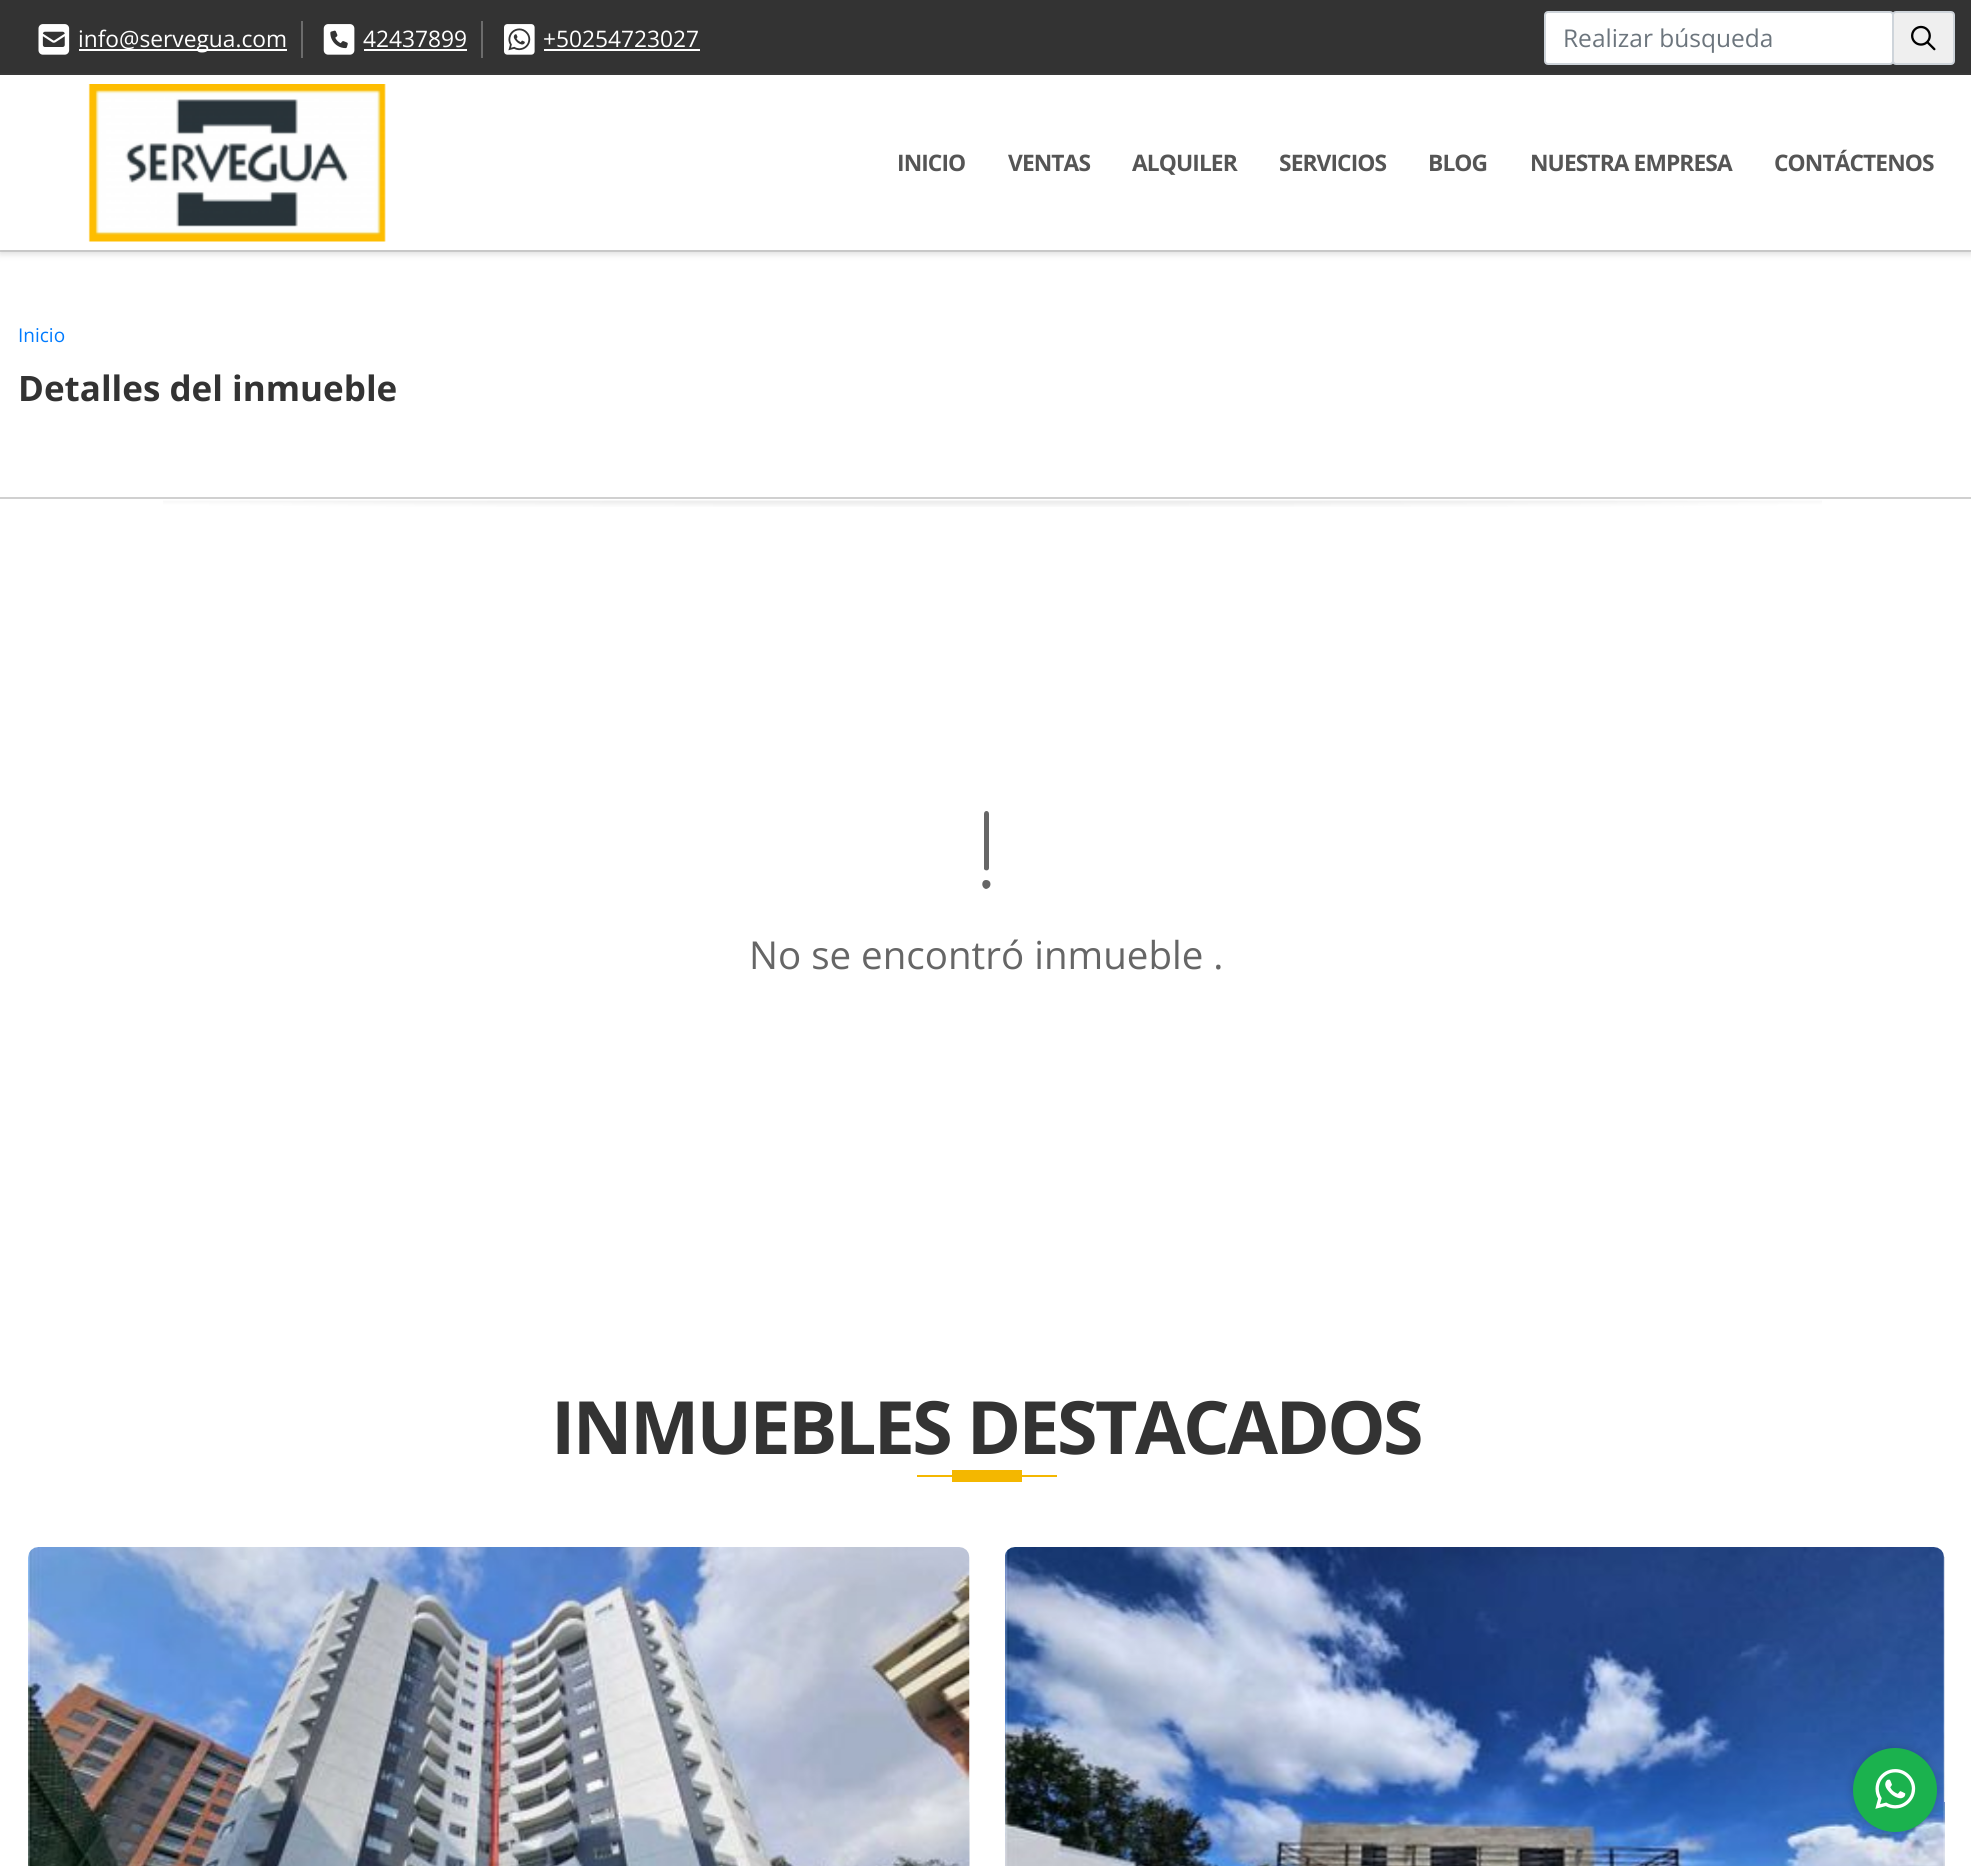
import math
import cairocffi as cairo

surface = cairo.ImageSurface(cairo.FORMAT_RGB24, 1971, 1866)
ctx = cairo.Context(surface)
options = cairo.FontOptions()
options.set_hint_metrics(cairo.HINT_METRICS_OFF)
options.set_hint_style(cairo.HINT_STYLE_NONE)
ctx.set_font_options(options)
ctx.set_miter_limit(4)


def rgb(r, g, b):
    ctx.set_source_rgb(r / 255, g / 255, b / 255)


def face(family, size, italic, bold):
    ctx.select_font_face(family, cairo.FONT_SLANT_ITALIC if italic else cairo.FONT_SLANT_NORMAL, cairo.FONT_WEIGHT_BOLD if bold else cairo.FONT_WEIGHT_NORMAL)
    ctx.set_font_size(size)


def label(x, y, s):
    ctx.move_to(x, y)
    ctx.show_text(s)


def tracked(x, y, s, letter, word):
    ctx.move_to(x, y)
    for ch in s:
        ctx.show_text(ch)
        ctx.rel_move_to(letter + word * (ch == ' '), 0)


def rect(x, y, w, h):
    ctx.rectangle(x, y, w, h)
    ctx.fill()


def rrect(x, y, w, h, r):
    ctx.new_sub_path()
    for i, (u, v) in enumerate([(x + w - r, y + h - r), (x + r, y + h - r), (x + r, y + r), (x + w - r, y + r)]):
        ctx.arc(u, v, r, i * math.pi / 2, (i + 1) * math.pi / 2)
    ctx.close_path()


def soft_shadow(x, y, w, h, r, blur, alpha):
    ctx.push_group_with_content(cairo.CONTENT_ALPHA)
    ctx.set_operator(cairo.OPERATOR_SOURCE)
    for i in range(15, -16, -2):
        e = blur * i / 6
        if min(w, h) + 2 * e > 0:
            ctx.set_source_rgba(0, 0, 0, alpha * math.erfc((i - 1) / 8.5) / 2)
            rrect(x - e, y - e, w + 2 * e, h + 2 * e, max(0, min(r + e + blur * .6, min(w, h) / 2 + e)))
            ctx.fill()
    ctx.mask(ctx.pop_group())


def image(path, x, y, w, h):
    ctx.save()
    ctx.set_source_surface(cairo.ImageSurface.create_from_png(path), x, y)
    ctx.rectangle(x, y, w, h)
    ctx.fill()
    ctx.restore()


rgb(255, 255, 255)
ctx.paint()
rgb(51, 51, 51)
rect(0, 0, 1971, 75)
rgb(108, 108, 108)
rect(301, 21, 2, 37)
image('image0.png', 38, 24, 32, 31)
rgb(255, 255, 255)
rect(79, 49, 208, 2)
face('Open Sans', 22.75, 0, 0)
label(78, 47, 'info@servegua.com')
rgb(108, 108, 108)
rect(481, 21, 2, 37)
image('image1.png', 323, 24, 32, 31)
rgb(255, 255, 255)
label(363, 47, '42437899')
rect(364, 49, 103, 2)
image('image2.png', 504, 24, 31, 31)
label(543, 47, '+50254723027')
rect(544, 49, 156, 2)
rrect(1545, 12, 348, 52, 3)
ctx.fill_preserve()
rgb(206, 212, 218)
ctx.stroke()
face('Open Sans', 24.5, 0, 0)
rgb(108, 117, 125)
label(1563, 47, 'Realizar búsqueda')
rgb(239, 239, 239)
rrect(1893, 12, 61, 52, 3)
ctx.fill_preserve()
rgb(206, 212, 218)
ctx.stroke()
image('image3.png', 1911, 25, 25, 26)
rgb(208, 208, 208)
rect(0, 250, 1971, 2)
ctx.save()
ctx.set_fill_rule(cairo.FILL_RULE_EVEN_ODD)
ctx.new_path()
ctx.move_to(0, 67)
ctx.line_to(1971, 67)
ctx.line_to(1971, 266)
ctx.line_to(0, 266)
ctx.close_path()
ctx.move_to(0, 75)
ctx.line_to(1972, 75)
ctx.line_to(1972, 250)
ctx.line_to(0, 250)
ctx.close_path()
ctx.clip()
rgb(186, 186, 186)
soft_shadow(0, 79, 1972, 175, 0, 3.5, 0.5)
ctx.restore()
image('image4.png', 88, 84, 298, 158)
face('Open Sans', 22.75, 0, 1)
rgb(85, 85, 85)
tracked(897, 171, 'INICIO', -0.9, 0)
tracked(1008, 171, 'VENTAS', -0.9, 0)
tracked(1132, 171, 'ALQUILER', -0.9, 0)
tracked(1279, 171, 'SERVICIOS', -0.9, 0)
tracked(1428, 171, 'BLOG', -0.9, 0)
tracked(1530, 171, 'NUESTRA EMPRESA', -0.9, 0)
tracked(1774, 171, 'CONTÁCTENOS', -0.9, 0)
rgb(208, 208, 208)
rect(0, 497, 1971, 2)
face('Open Sans', 19, 0, 0)
rgb(0, 123, 255)
label(18, 342, 'Inicio')
face('Open Sans', 35, 0, 1)
rgb(51, 51, 51)
label(18, 401, 'Detalles del inmueble')
image('image5.png', 163, 500, 1659, 7)
rgb(102, 102, 102)
ctx.new_path()
ctx.move_to(989, 814)
ctx.curve_to(989, 810, 984, 810, 984, 814)
ctx.line_to(984, 869)
ctx.curve_to(985, 871, 989, 871, 989, 868)
ctx.close_path()
ctx.move_to(986, 889)
ctx.curve_to(992, 888, 992, 880, 986, 880)
ctx.curve_to(981, 880, 981, 888, 986, 889)
ctx.close_path()
ctx.fill()
face('Open Sans', 38.5, 0, 0)
label(749, 969, 'No se encontró inmueble .')
face('Open Sans', 73.5, 0, 1)
rgb(51, 51, 51)
tracked(551, 1454, 'INMUEBLES DESTACADOS', -2.6, 0)
rgb(244, 183, 0)
rect(917, 1475, 140, 2)
rect(952, 1470, 70, 12)
image('image6.png', 28, 1547, 942, 319)
image('image7.png', 1005, 1547, 940, 319)
rgb(0, 0, 0)
soft_shadow(1853, 1748, 84, 84, 42, 5, 0.2)
rgb(27, 178, 78)
ctx.arc(1895, 1790, 42, 0, 2 * math.pi)
ctx.fill()
image('image8.png', 1875, 1769, 41, 40)
surface.write_to_png('render.png')
